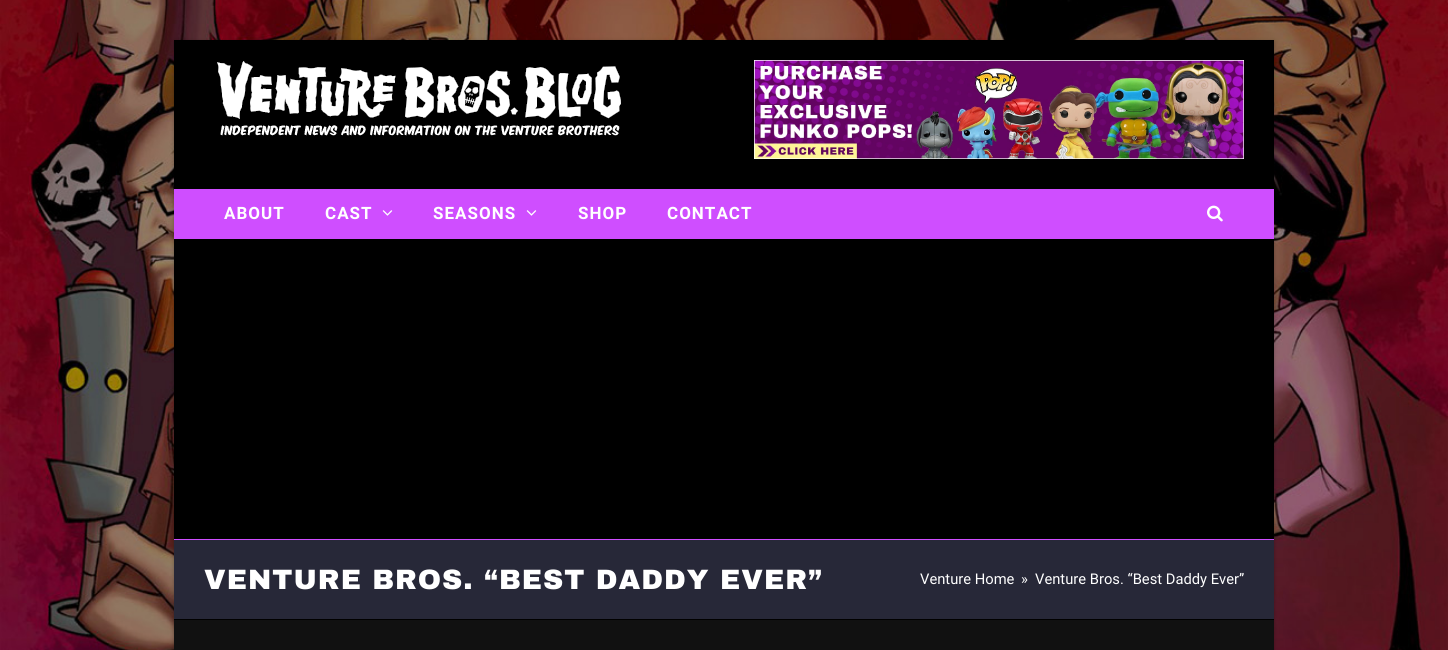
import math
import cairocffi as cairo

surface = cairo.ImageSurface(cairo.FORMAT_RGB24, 1448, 650)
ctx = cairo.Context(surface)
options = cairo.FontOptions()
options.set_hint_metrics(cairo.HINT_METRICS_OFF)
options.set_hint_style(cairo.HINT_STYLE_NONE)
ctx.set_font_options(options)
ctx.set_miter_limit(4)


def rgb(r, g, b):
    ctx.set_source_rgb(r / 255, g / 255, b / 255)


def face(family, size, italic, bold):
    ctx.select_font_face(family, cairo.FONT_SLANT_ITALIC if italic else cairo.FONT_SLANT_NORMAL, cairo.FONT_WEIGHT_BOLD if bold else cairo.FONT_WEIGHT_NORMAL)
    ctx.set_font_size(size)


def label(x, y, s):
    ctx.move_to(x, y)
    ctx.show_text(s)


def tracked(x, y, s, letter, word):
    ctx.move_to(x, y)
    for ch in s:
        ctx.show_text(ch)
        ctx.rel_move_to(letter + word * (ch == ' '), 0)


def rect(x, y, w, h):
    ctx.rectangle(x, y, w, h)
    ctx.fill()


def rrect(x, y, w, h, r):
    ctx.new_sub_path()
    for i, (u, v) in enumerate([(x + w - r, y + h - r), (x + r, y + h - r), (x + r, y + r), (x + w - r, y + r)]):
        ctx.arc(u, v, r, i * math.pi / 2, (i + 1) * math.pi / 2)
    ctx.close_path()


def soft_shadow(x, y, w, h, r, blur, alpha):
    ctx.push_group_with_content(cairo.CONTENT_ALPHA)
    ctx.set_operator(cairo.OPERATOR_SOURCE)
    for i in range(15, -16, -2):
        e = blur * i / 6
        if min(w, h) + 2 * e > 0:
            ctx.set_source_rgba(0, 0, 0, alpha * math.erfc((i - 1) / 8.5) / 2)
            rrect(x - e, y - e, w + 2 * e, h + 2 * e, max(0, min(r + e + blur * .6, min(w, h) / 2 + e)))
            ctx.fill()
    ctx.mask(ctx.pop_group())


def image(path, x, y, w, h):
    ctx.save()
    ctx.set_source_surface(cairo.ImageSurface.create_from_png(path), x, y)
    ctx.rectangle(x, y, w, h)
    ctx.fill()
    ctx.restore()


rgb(255, 255, 255)
ctx.paint()
image('image0.png', 0, 0, 1448, 650)
rgb(0, 0, 0)
soft_shadow(174, 41, 1100, 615, 0, 2, 0.25)
rgb(17, 17, 17)
rect(174, 620, 1100, 30)
rgb(0, 0, 0)
rect(174, 40, 1100, 499)
image('image1.png', 217, 61, 404, 75)
image('image2.png', 754, 60, 490, 99)
rgb(207, 78, 255)
rect(174, 189, 1100, 50)
face('Roboto', 17, 0, 1)
rgb(255, 255, 255)
tracked(224, 219, 'ABOUT', 1, 0)
tracked(325, 219, 'CAST', 1, 0)
image('image3.png', 382, 210, 11, 6)
tracked(433, 219, 'SEASONS', 1, 0)
image('image3.png', 526, 210, 11, 6)
tracked(578, 219, 'SHOP', 1, 0)
tracked(667, 219, 'CONTACT', 1, 0)
image('image4.png', 1207, 205, 16, 17)
rgb(39, 40, 56)
rect(174, 540, 1100, 79)
rgb(207, 78, 255)
rect(174, 539, 1100, 1)
rgb(0, 0, 0)
rect(174, 619, 1100, 1)
face('Archivo Black Black', 28, 0, 0)
rgb(255, 255, 255)
tracked(204, 589, 'VENTURE BROS. “BEST DADDY EVER”', 1, 0)
face('Roboto', 14.75, 0, 0)
label(920, 584, 'Venture Home')
label(1021, 584, '»')
label(1035, 584, 'Venture Bros. “Best Daddy Ever”')
surface.write_to_png('render.png')
